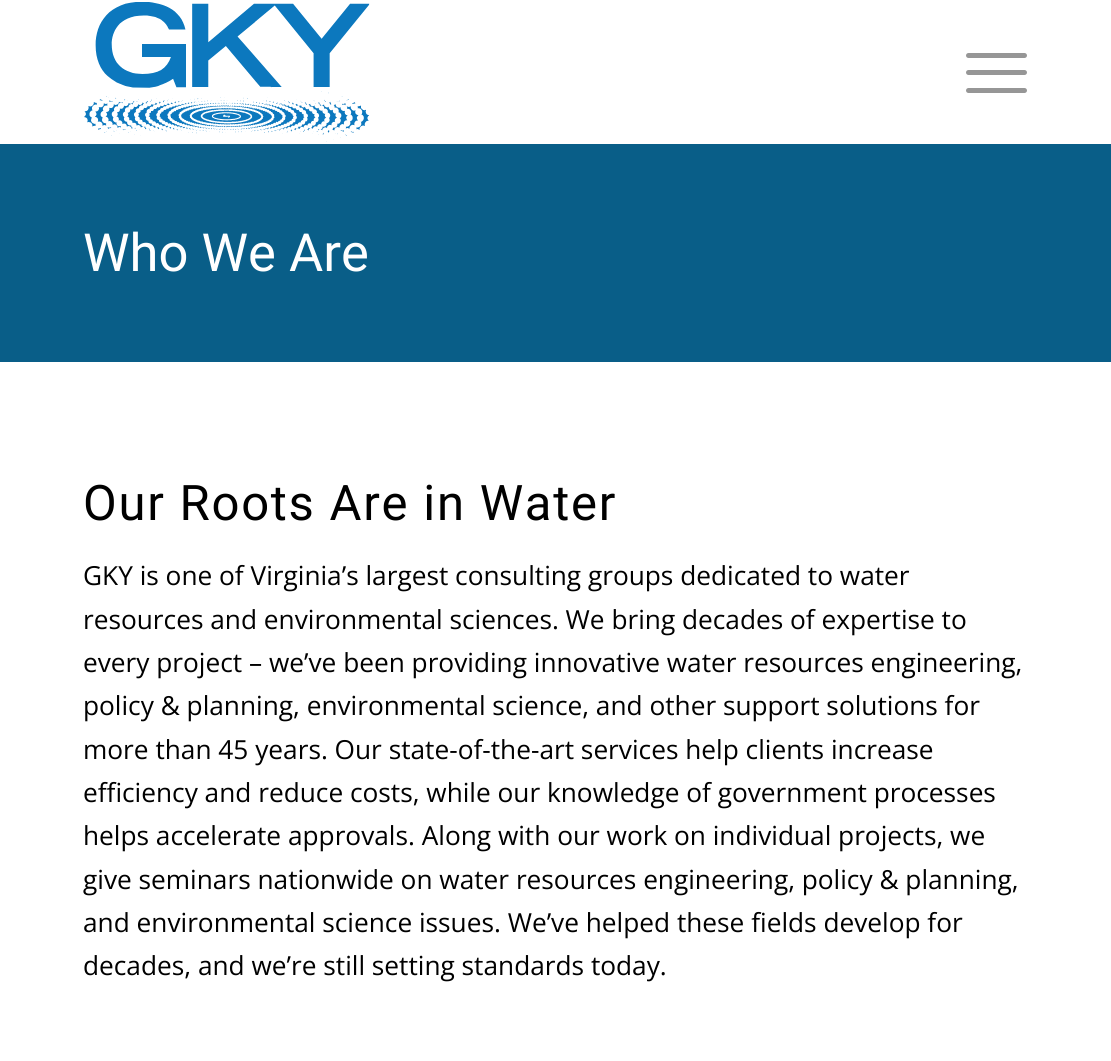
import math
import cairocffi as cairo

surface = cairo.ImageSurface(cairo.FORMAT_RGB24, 1111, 1061)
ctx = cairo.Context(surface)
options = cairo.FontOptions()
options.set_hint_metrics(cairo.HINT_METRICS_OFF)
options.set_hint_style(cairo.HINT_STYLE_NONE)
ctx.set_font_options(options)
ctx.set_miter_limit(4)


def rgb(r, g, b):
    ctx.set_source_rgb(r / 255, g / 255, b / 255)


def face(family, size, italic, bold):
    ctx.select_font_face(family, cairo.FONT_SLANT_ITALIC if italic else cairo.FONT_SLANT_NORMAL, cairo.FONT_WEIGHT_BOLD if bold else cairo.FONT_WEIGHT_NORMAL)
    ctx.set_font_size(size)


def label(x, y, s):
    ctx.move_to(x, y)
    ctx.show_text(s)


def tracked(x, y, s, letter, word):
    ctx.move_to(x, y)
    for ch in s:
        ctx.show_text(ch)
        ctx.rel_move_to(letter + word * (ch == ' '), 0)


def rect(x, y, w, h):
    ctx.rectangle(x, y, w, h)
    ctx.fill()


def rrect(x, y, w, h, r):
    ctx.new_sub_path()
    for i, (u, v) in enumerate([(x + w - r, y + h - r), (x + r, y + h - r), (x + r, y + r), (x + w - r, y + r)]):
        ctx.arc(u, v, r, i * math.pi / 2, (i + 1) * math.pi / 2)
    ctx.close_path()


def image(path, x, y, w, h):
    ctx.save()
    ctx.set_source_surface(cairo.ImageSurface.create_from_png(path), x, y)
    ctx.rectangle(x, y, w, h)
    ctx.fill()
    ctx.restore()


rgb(255, 255, 255)
ctx.paint()
image('image0.png', 84, 2, 286, 140)
rgb(150, 150, 150)
rrect(966, 70, 61, 5, 2.5)
ctx.fill()
rrect(966, 53, 61, 5, 2.5)
ctx.fill()
rrect(966, 88, 61, 5, 2.5)
ctx.fill()
rgb(9, 94, 136)
rect(0, 144, 1111, 218)
face('Roboto', 52.5, 0, 0)
rgb(255, 255, 255)
label(83, 271, 'Who We Are')
face('Roboto', 49, 0, 0)
rgb(0, 0, 0)
tracked(83, 520, 'Our Roots Are in Water', 1.75, 0)
face('Open Sans', 26.25, 0, 0)
label(83, 585, 'GKY is one of Virginia’s largest consulting groups dedicated to water')
label(83, 629, 'resources and environmental sciences. We bring decades of expertise to')
label(83, 672, 'every project – we’ve been providing innovative water resources engineering,')
label(83, 715, 'policy & planning, environmental science, and other support solutions for')
label(83, 759, 'more than 45 years. Our state-of-the-art services help clients increase')
label(83, 802, 'efficiency and reduce costs, while our knowledge of government processes')
label(83, 845, 'helps accelerate approvals. Along with our work on individual projects, we')
label(83, 889, 'give seminars nationwide on water resources engineering, policy & planning,')
label(83, 932, 'and environmental science issues. We’ve helped these fields develop for')
label(83, 975, 'decades, and we’re still setting standards today.')
surface.write_to_png('render.png')
